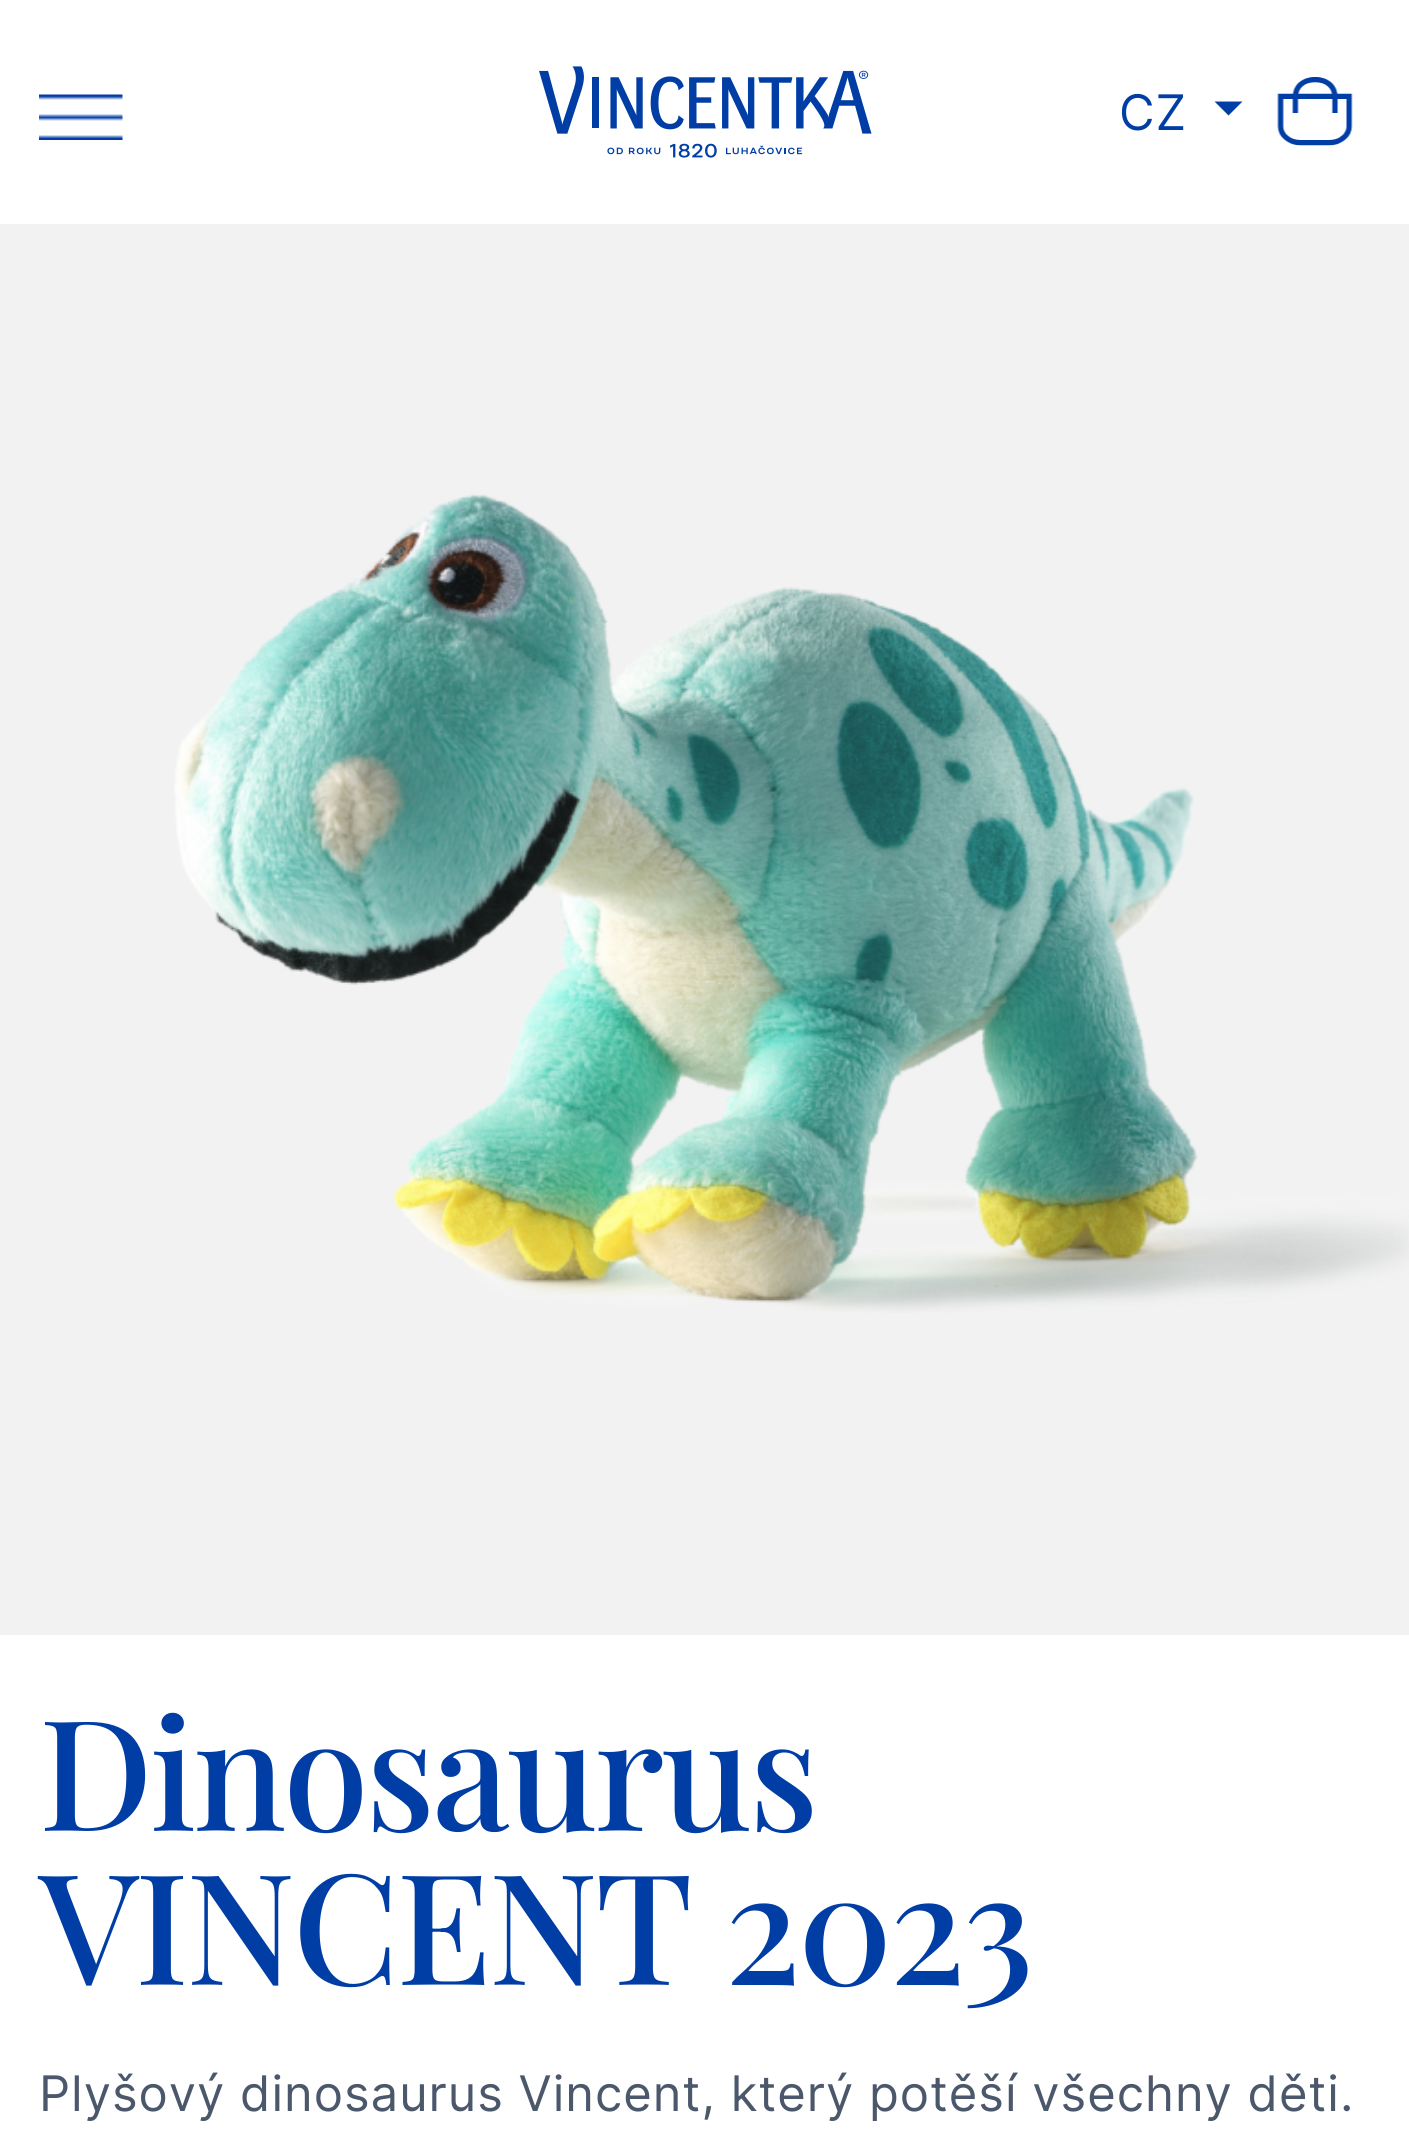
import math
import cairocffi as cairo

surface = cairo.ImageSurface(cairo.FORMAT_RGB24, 1409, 2148)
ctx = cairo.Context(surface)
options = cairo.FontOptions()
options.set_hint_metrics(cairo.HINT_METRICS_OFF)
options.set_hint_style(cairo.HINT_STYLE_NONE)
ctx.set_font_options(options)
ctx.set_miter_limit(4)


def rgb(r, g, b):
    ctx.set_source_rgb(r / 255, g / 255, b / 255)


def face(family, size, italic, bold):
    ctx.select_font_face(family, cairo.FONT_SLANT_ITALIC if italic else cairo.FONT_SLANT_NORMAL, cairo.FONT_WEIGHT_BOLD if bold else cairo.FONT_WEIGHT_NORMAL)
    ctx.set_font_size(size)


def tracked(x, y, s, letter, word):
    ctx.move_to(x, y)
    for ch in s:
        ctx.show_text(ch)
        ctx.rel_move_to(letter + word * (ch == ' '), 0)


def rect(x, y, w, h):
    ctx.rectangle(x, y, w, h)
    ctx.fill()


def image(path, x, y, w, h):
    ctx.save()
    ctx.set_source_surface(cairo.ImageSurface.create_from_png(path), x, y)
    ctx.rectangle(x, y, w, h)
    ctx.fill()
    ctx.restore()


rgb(255, 255, 255)
ctx.paint()
image('image0.png', 39, 94, 84, 46)
image('image1.png', 539, 66, 333, 92)
face('Inter', 49, 0, 0)
rgb(0, 61, 165)
tracked(1119, 130, 'CZ', 0.98, 0)
ctx.new_path()
ctx.move_to(1214.5, 101.5)
ctx.line_to(1242.5, 101.5)
ctx.line_to(1228.5, 115.5)
ctx.close_path()
ctx.fill()
image('image2.png', 1277, 77, 76, 69)
rgb(242, 242, 242)
rect(0, 224, 1409, 1411)
image('image3.png', 174, 494, 1235, 819)
face('Playfair Display Medium', 154, 0, 0)
rgb(0, 61, 165)
tracked(39, 1831, 'Dinosaurus', -3, 0)
tracked(39, 1985, 'VINCENT 2023', -3, 0)
face('Inter', 49, 0, 0)
rgb(75, 87, 107)
tracked(39, 2111, 'Plyšový dinosaurus Vincent, který potěší všechny děti.', 0.98, 0)
surface.write_to_png('render.png')
